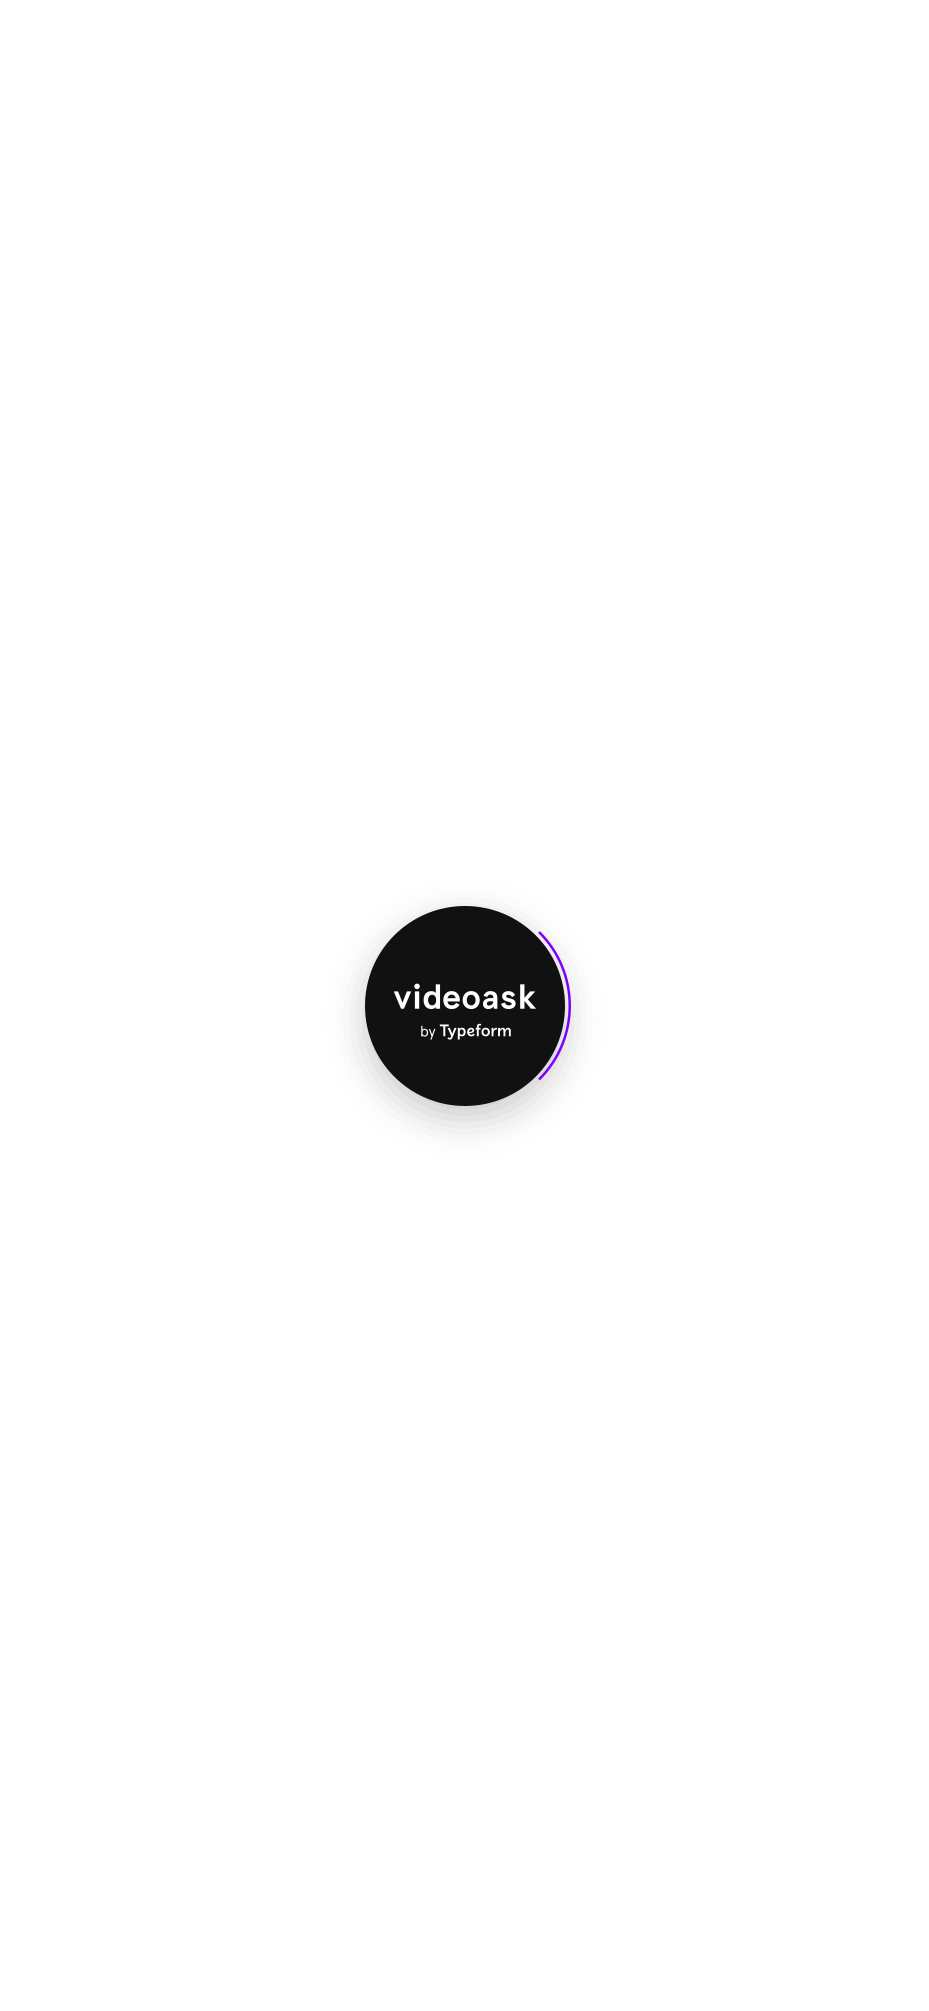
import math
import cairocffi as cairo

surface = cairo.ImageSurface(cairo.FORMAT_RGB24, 929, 2011)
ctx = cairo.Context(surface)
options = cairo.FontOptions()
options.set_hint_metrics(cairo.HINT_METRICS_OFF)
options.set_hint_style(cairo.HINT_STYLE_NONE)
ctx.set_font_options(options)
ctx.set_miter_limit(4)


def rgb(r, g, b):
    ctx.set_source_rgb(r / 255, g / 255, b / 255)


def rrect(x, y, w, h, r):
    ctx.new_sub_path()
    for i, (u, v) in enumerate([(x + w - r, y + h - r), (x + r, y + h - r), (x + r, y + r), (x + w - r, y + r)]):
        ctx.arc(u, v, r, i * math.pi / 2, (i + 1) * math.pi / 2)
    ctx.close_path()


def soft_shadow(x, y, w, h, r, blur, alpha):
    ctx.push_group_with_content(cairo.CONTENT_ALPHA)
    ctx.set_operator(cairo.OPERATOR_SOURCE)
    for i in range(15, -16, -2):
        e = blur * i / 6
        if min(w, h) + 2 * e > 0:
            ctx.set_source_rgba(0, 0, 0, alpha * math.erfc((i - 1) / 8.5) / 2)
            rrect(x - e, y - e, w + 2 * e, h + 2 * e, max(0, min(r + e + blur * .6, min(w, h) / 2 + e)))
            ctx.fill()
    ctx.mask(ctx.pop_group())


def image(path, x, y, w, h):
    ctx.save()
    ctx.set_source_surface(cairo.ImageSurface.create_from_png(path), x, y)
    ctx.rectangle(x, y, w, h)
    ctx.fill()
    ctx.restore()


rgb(255, 255, 255)
ctx.paint()
rgb(0, 0, 0)
soft_shadow(365, 919, 200, 200, 100, 19, 0.21)
rgb(17, 17, 17)
ctx.arc(465, 1006, 100, 0, 2 * math.pi)
ctx.fill()
image('image0.png', 394, 983, 142, 57)
ctx.new_path()
ctx.move_to(539, 932)
ctx.curve_to(580, 972.5, 580, 1039, 539, 1079.5)
rgb(125, 0, 254)
ctx.set_line_width(2.5)
ctx.stroke()
surface.write_to_png('render.png')
